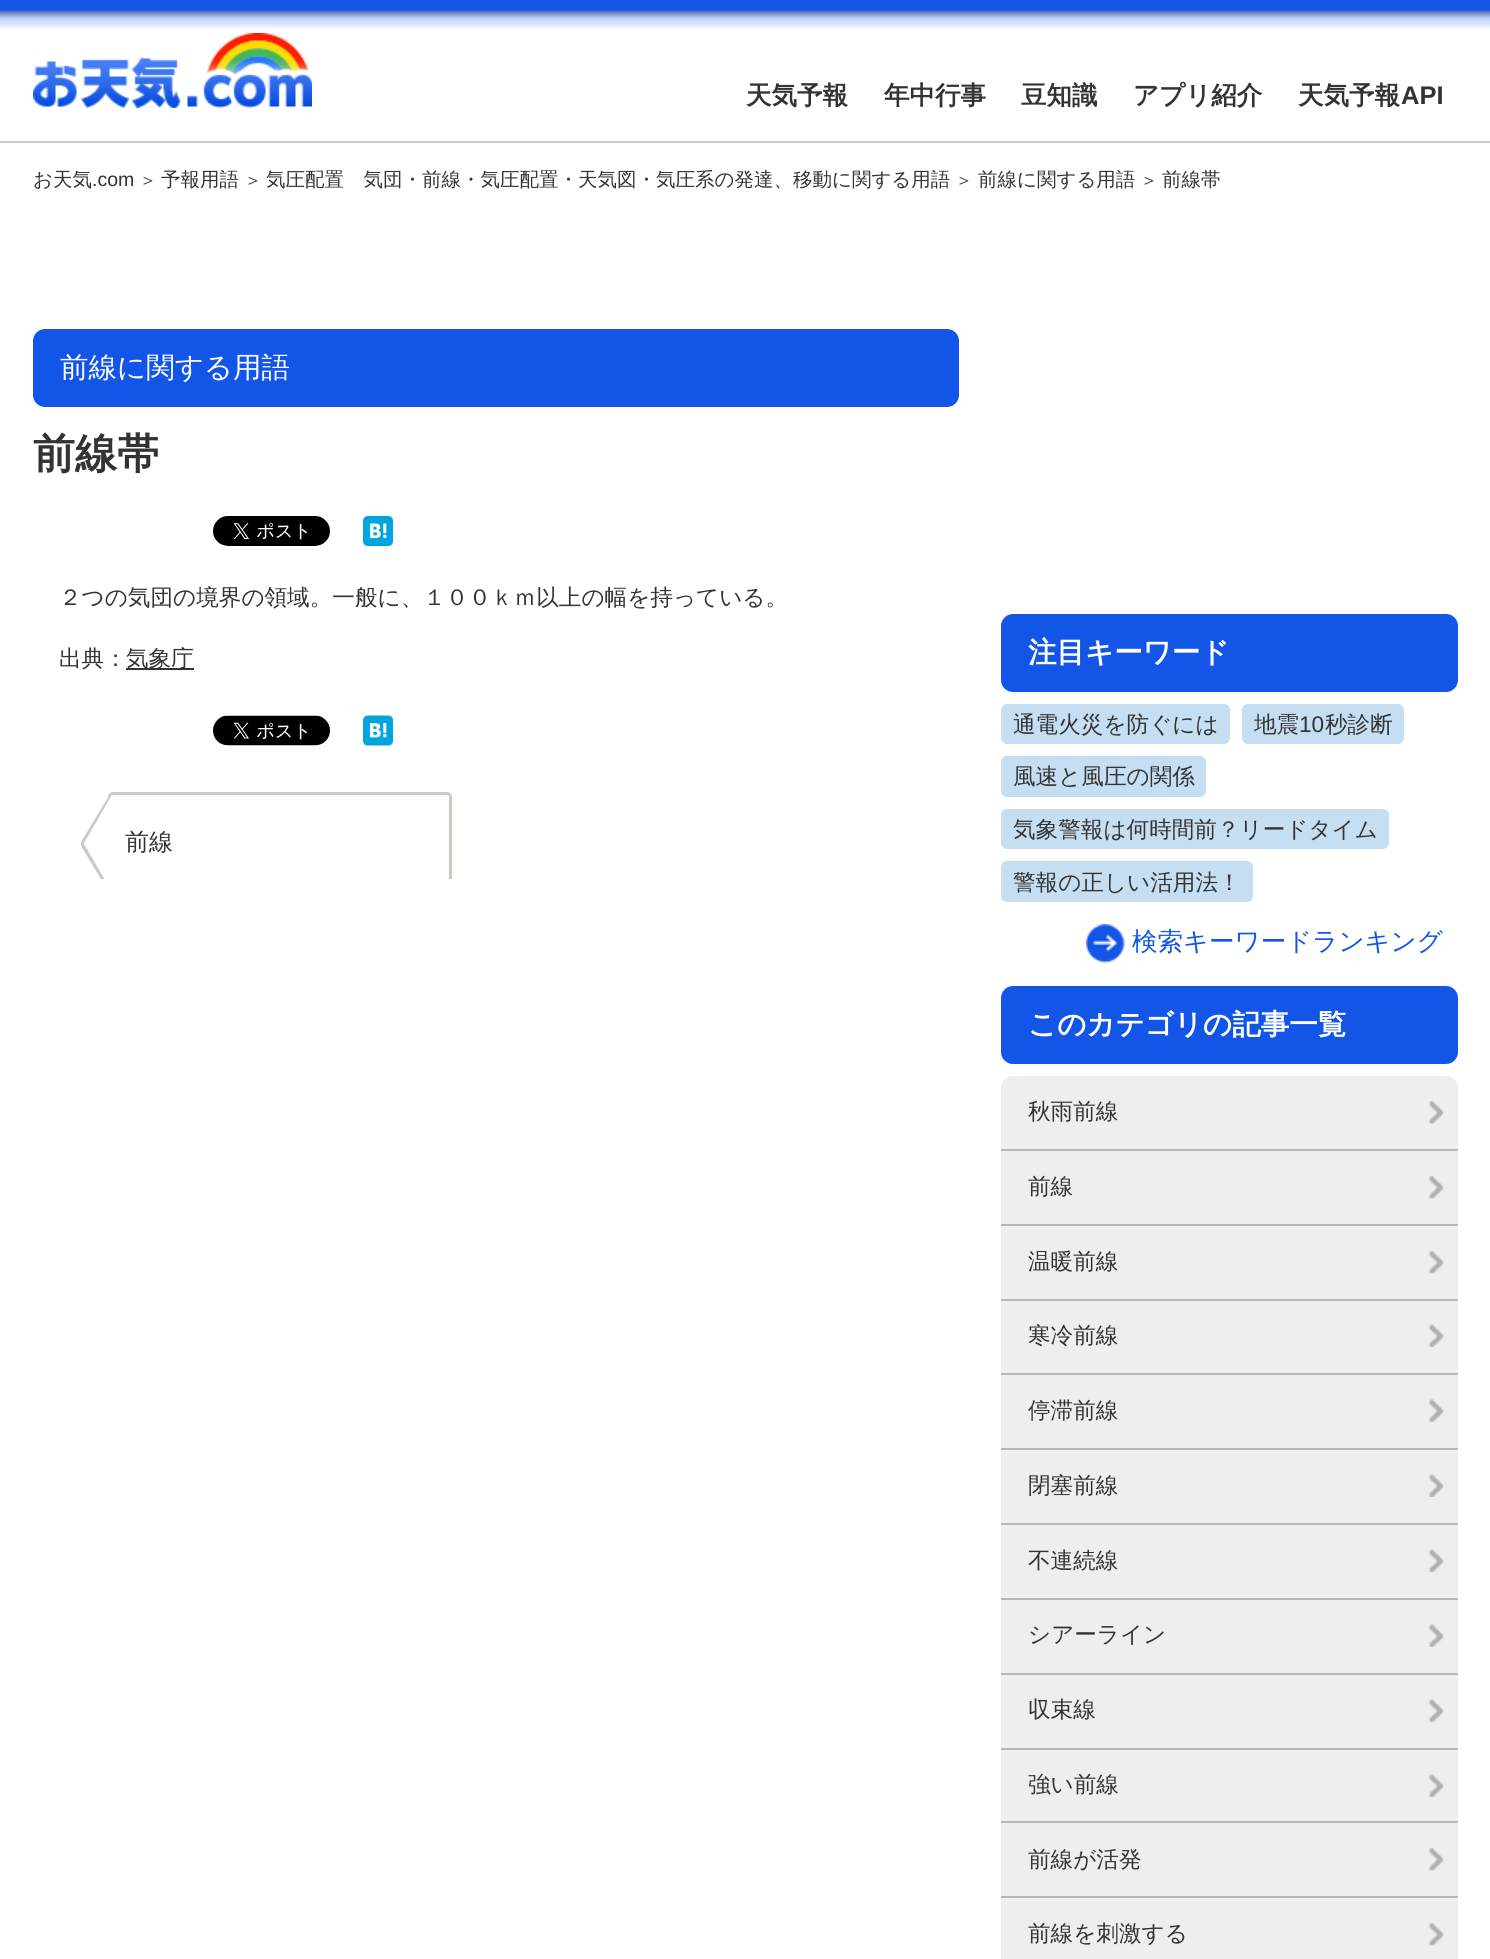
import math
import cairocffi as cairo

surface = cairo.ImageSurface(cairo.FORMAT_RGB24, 1490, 1959)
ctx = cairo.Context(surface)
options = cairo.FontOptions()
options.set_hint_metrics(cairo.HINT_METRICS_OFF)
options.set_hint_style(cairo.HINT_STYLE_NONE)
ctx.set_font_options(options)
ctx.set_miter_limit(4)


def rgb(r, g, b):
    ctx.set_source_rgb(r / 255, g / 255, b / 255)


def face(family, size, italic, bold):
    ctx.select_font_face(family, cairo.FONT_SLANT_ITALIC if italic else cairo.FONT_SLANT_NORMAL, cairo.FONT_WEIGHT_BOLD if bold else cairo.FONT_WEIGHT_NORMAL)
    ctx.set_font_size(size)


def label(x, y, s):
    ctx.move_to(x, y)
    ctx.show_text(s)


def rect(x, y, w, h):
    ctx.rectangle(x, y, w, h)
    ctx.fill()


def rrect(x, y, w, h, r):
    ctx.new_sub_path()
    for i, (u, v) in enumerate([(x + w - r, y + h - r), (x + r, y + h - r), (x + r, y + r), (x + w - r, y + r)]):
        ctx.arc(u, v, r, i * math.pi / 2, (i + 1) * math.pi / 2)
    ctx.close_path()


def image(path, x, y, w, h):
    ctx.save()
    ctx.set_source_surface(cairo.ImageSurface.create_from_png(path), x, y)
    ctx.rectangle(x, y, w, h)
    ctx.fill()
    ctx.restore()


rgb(255, 255, 255)
ctx.paint()
image('image0.png', 0, 0, 1490, 30)
rgb(204, 204, 204)
rect(0, 141, 1490, 2)
image('image1.png', 33, 33, 279, 75)
face('WenQuanYi Zen Hei', 25.5, 0, 1)
rgb(51, 51, 51)
label(746, 104, '天気予報')
label(884, 104, '年中行事')
label(1021, 104, '豆知識')
label(1133, 104, 'アプリ紹介')
label(1298, 104, '天気予報')
face('Liberation Sans', 25.5, 0, 1)
label(1401, 104, 'API')
face('WenQuanYi Zen Hei Medium', 19.5, 0, 0)
label(33, 186, 'お天気')
face('Liberation Sans', 19.5, 0, 0)
label(92, 186, '.com')
face('WenQuanYi Zen Hei Medium', 18, 0, 0)
rgb(69, 56, 36)
label(139, 186, '＞')
face('WenQuanYi Zen Hei Medium', 19.5, 0, 0)
rgb(51, 51, 51)
label(161, 186, '予報用語')
face('WenQuanYi Zen Hei Medium', 18, 0, 0)
rgb(69, 56, 36)
label(244, 186, '＞')
face('WenQuanYi Zen Hei Medium', 19.5, 0, 0)
rgb(51, 51, 51)
label(266, 186, '気圧配置　気団・前線・気圧配置・天気図・気圧系の発達、移動に関する用語')
face('WenQuanYi Zen Hei Medium', 18, 0, 0)
rgb(69, 56, 36)
label(955, 186, '＞')
face('WenQuanYi Zen Hei Medium', 19.5, 0, 0)
rgb(51, 51, 51)
label(978, 186, '前線に関する用語')
face('WenQuanYi Zen Hei Medium', 18, 0, 0)
rgb(69, 56, 36)
label(1140, 186, '＞')
face('WenQuanYi Zen Hei Medium', 19.5, 0, 0)
rgb(51, 51, 51)
label(1162, 186, '前線帯')
rgb(19, 86, 231)
rrect(33, 329, 926, 78, 12)
ctx.fill()
face('WenQuanYi Zen Hei Medium', 28.5, 0, 0)
rgb(255, 255, 255)
label(60, 377, '前線に関する用語')
face('WenQuanYi Zen Hei', 42, 0, 1)
rgb(51, 51, 51)
label(33, 468, '前線帯')
image('image2.png', 213, 516, 117, 30)
image('image3.png', 363, 516, 30, 30)
face('WenQuanYi Zen Hei Medium', 22.6, 0, 0)
label(59, 605, '２つの気団の境界の領域。一般に、１００ｋｍ以上の幅を持っている。')
label(59, 666, '出典：')
rect(126, 668, 68, 2)
label(126, 666, '気象庁')
image('image4.png', 213, 715, 117, 31)
image('image5.png', 363, 715, 30, 31)
ctx.save()
ctx.rectangle(33, 777, 926, 102)
ctx.clip()
rrect(109.5, 793.5, 341, 99, 3.5)
rgb(203, 202, 195)
ctx.set_line_width(3)
ctx.stroke()
ctx.new_path()
ctx.move_to(110, 794)
ctx.line_to(110, 894)
ctx.line_to(81, 846)
ctx.line_to(81, 842)
ctx.close_path()
ctx.fill()
rgb(255, 255, 255)
ctx.new_path()
ctx.move_to(112, 795)
ctx.line_to(112, 892)
ctx.line_to(84, 844)
ctx.line_to(84, 843)
ctx.close_path()
ctx.fill()
ctx.restore()
face('WenQuanYi Zen Hei Medium', 24, 0, 0)
label(125, 850, '前線')
rgb(19, 86, 231)
rrect(1001, 614, 457, 78, 12)
ctx.fill()
face('WenQuanYi Zen Hei', 28.5, 0, 1)
rgb(255, 255, 255)
label(1028, 662, '注目キーワード')
rgb(198, 222, 242)
rrect(1001, 704, 229, 40, 6)
ctx.fill()
face('WenQuanYi Zen Hei Medium', 22.6, 0, 0)
rgb(51, 51, 51)
label(1013, 732, '通電火災を防ぐには')
rgb(198, 222, 242)
rrect(1242, 704, 162, 40, 6)
ctx.fill()
rgb(51, 51, 51)
label(1254, 732, '地震')
face('Liberation Sans', 22.6, 0, 0)
label(1299, 732, '10')
face('WenQuanYi Zen Hei Medium', 22.6, 0, 0)
label(1325, 732, '秒診断')
rgb(198, 222, 242)
rrect(1001, 756, 205, 41, 6)
ctx.fill()
rgb(51, 51, 51)
label(1013, 784, '風速と風圧の関係')
rgb(198, 222, 242)
rrect(1001, 809, 388, 40, 6)
ctx.fill()
rgb(51, 51, 51)
label(1013, 837, '気象警報は何時間前？リードタイム')
rgb(198, 222, 242)
rrect(1001, 861, 252, 41, 6)
ctx.fill()
rgb(51, 51, 51)
label(1013, 890, '警報の正しい活用法！')
image('image6.png', 1086, 924, 39, 39)
face('WenQuanYi Zen Hei Medium', 25.5, 0, 0)
rgb(19, 86, 231)
label(1132, 950, '検索キーワードランキング')
rrect(1001, 986, 457, 78, 12)
ctx.fill()
face('WenQuanYi Zen Hei', 28.5, 0, 1)
rgb(255, 255, 255)
label(1028, 1034, 'このカテゴリの記事一覧')
rgb(238, 238, 238)
rrect(1001, 1076, 457, 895, 12)
ctx.fill()
image('image7.png', 1429, 1101, 15, 23)
face('WenQuanYi Zen Hei Medium', 22.6, 0, 0)
rgb(51, 51, 51)
label(1028, 1119, '秋雨前線')
rgb(182, 182, 182)
rect(1001, 1149, 457, 2)
image('image7.png', 1429, 1176, 15, 23)
rgb(51, 51, 51)
label(1028, 1194, '前線')
rgb(182, 182, 182)
rect(1001, 1224, 457, 2)
image('image7.png', 1429, 1251, 15, 23)
rgb(51, 51, 51)
label(1028, 1269, '温暖前線')
rgb(182, 182, 182)
rect(1001, 1299, 457, 2)
image('image8.png', 1429, 1324, 15, 23)
rgb(51, 51, 51)
label(1028, 1343, '寒冷前線')
rgb(182, 182, 182)
rect(1001, 1373, 457, 2)
image('image8.png', 1429, 1399, 15, 23)
rgb(51, 51, 51)
label(1028, 1418, '停滞前線')
rgb(182, 182, 182)
rect(1001, 1448, 457, 2)
image('image8.png', 1429, 1474, 15, 23)
rgb(51, 51, 51)
label(1028, 1493, '閉塞前線')
rgb(182, 182, 182)
rect(1001, 1523, 457, 2)
image('image8.png', 1429, 1549, 15, 23)
rgb(51, 51, 51)
label(1028, 1568, '不連続線')
rgb(182, 182, 182)
rect(1001, 1598, 457, 2)
image('image8.png', 1429, 1624, 15, 23)
rgb(51, 51, 51)
label(1028, 1642, 'シアーライン')
rgb(182, 182, 182)
rect(1001, 1673, 457, 2)
image('image8.png', 1429, 1699, 15, 23)
rgb(51, 51, 51)
label(1028, 1717, '収束線')
rgb(182, 182, 182)
rect(1001, 1748, 457, 2)
image('image8.png', 1429, 1774, 15, 23)
rgb(51, 51, 51)
label(1028, 1792, '強い前線')
rgb(182, 182, 182)
rect(1001, 1821, 457, 2)
image('image7.png', 1429, 1848, 15, 23)
rgb(51, 51, 51)
label(1028, 1867, '前線が活発')
rgb(182, 182, 182)
rect(1001, 1896, 457, 2)
image('image7.png', 1429, 1923, 15, 23)
rgb(51, 51, 51)
label(1028, 1941, '前線を刺激する')
surface.write_to_png('render.png')
